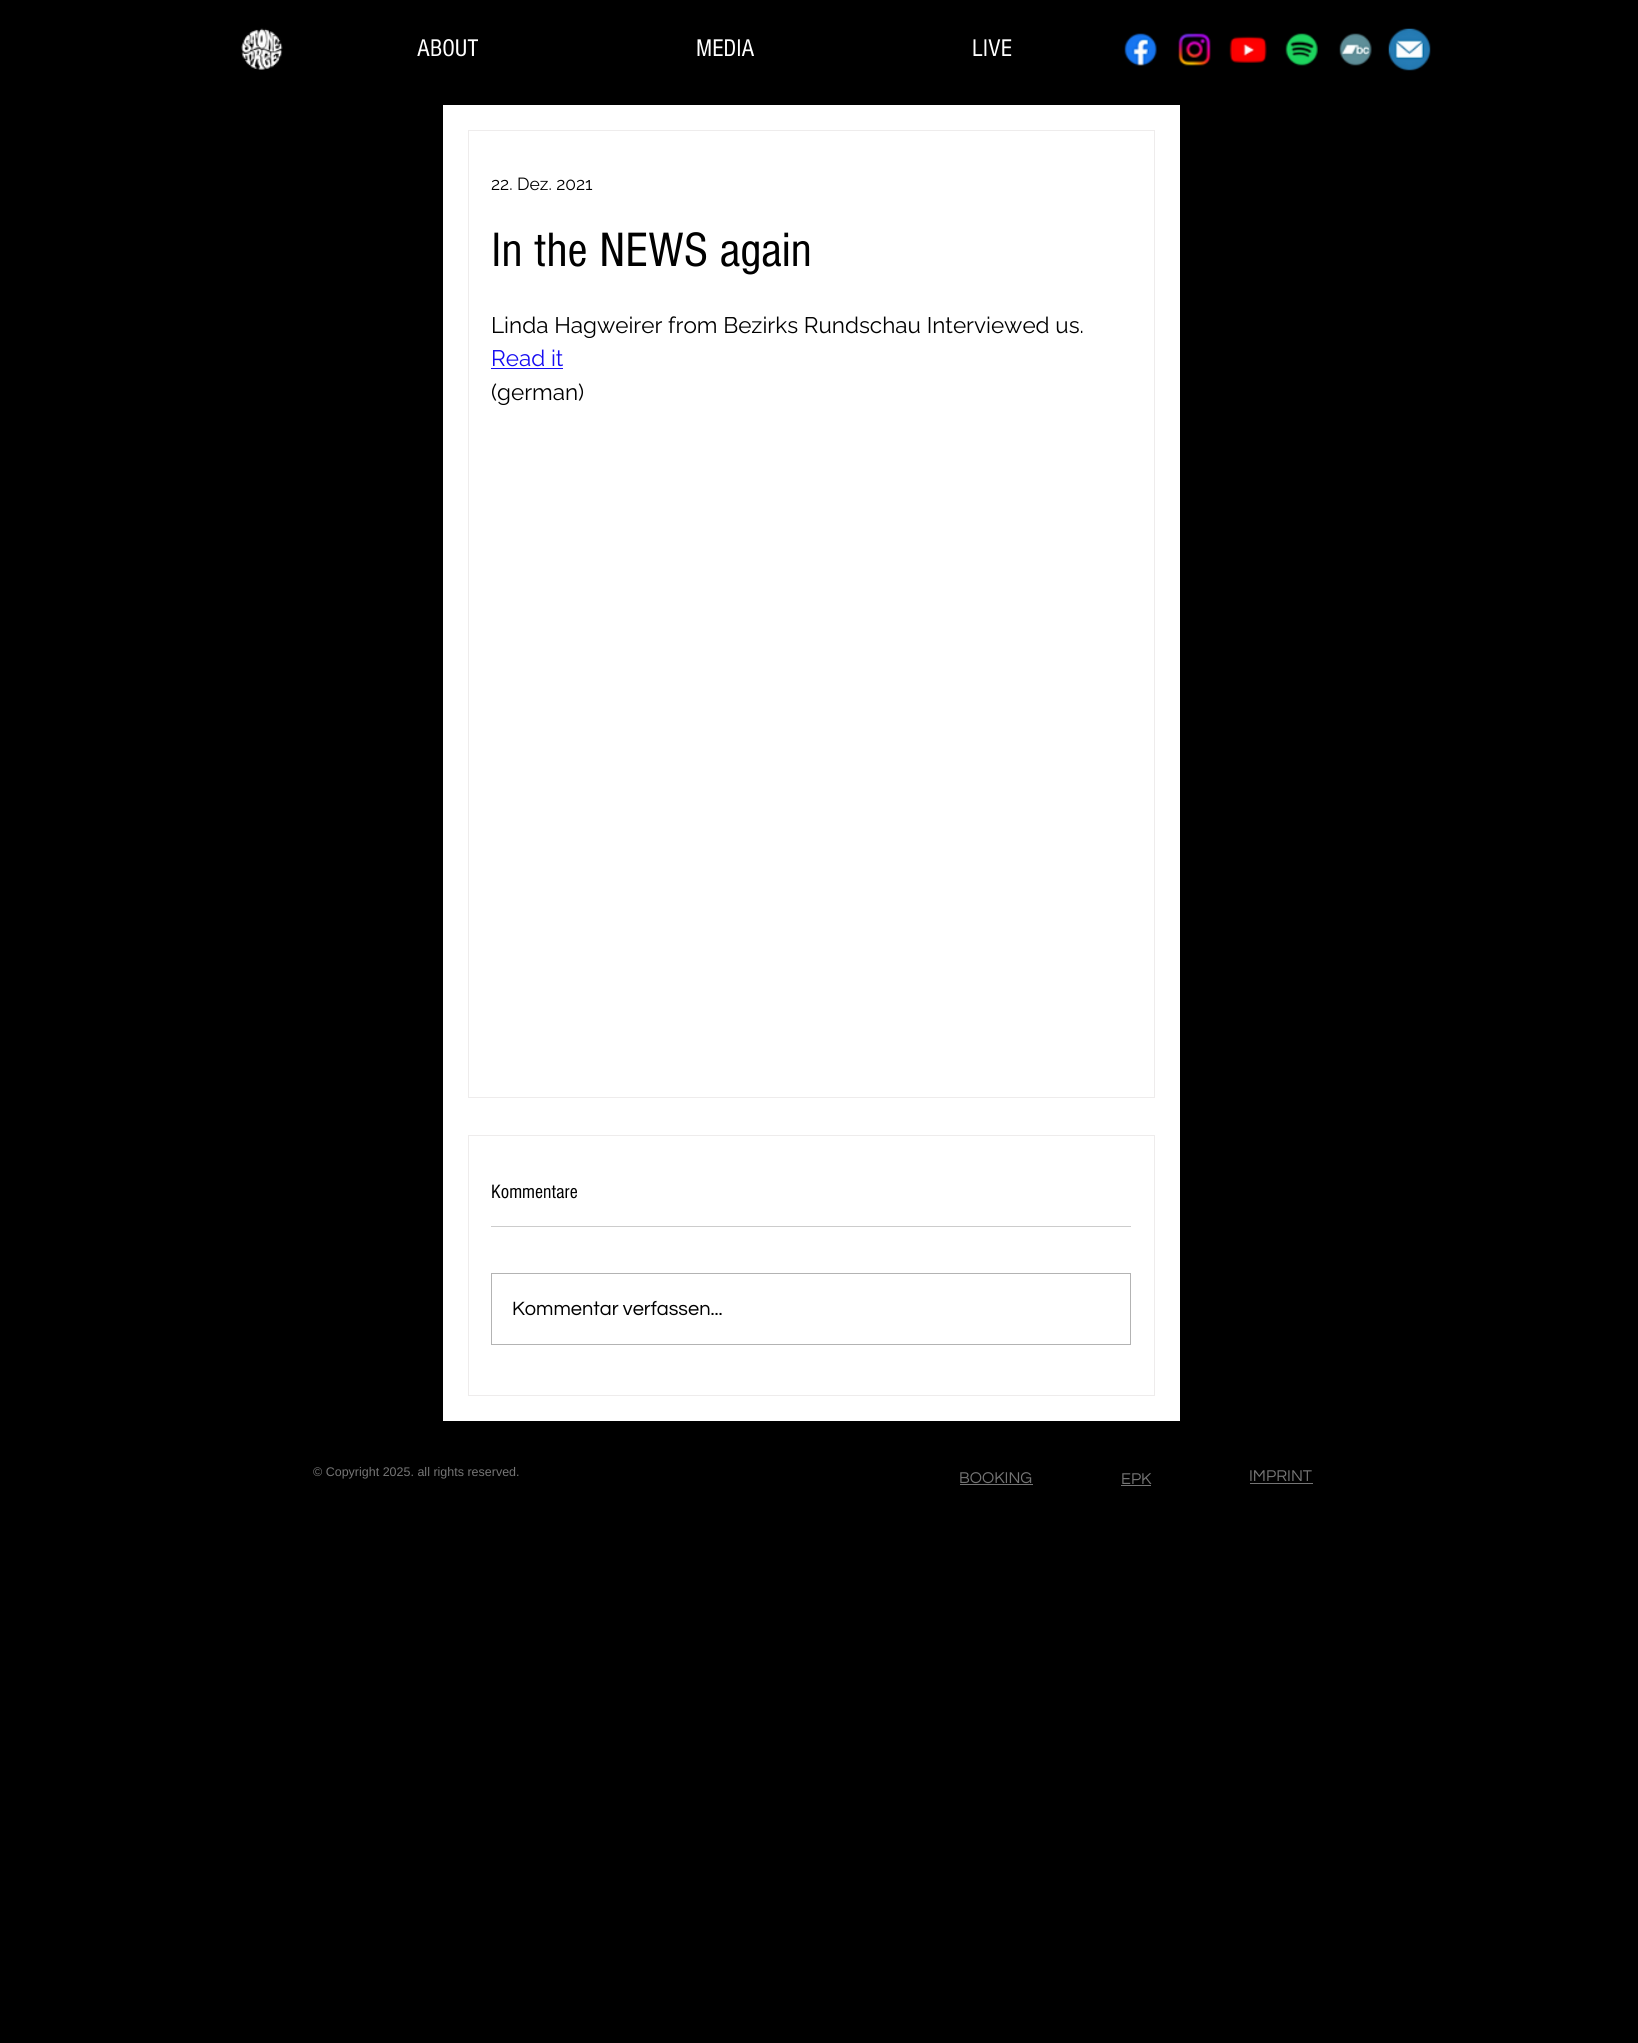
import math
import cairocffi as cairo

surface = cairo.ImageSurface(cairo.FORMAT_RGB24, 1638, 2043)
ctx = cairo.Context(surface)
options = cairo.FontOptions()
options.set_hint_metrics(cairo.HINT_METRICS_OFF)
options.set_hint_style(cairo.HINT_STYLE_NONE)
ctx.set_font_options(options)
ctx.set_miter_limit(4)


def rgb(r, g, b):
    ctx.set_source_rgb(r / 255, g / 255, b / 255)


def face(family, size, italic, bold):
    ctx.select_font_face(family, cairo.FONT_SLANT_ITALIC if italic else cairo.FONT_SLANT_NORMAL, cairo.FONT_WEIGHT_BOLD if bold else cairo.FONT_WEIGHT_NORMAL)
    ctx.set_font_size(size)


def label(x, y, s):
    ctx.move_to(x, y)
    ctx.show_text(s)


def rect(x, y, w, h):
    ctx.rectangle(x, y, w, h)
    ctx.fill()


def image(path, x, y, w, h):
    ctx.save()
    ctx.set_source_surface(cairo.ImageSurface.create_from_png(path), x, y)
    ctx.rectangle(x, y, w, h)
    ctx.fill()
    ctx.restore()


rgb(0, 0, 0)
ctx.paint()
image('image0.png', 241, 28, 42, 42)
face('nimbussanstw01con', 25, 0, 0)
rgb(255, 255, 255)
label(417, 56, 'ABOUT')
label(696, 56, 'MEDIA')
label(972, 56, 'LIVE')
image('image1.png', 1124, 33, 33, 33)
image('image2.png', 1178, 33, 33, 33)
image('image3.png', 1229, 36, 38, 27)
image('image4.png', 1285, 33, 33, 33)
image('image5.png', 1339, 33, 33, 33)
image('image6.png', 1388, 28, 43, 43)
rect(443, 105, 737, 1316)
ctx.rectangle(468.5, 130.5, 686, 967)
rgb(238, 236, 236)
ctx.set_line_width(1)
ctx.stroke()
face('Raleway', 17.5, 0, 0)
rgb(0, 0, 0)
label(491, 190, '22. Dez. 2021')
face('nimbussanstw01con', 50, 0, 0)
label(491, 266, 'In the NEWS again')
face('Raleway', 22.5, 0, 0)
label(491, 333, 'Linda Hagweirer from Bezirks Rundschau Interviewed us.')
rgb(23, 13, 242)
label(491, 366, 'Read it')
rect(491, 368, 72, 1)
rgb(0, 0, 0)
label(491, 400, '(german)')
ctx.rectangle(468.5, 1135.5, 686, 260)
rgb(238, 236, 236)
ctx.stroke()
face('nimbussanstw01con', 20, 0, 0)
rgb(0, 0, 0)
label(491, 1198, 'Kommentare')
rgb(204, 204, 204)
rect(491, 1226, 640, 1)
ctx.rectangle(491.5, 1273.5, 639, 71)
rgb(179, 179, 179)
ctx.stroke()
face('Questrial', 20, 0, 0)
rgb(0, 0, 0)
label(512, 1315, 'Kommentar verfassen...')
face('Liberation Sans', 12.5, 0, 0)
rgb(117, 117, 117)
label(313, 1476, '© Copyright 2025. all rights reserved.')
face('Questrial', 16.25, 0, 0)
label(959, 1483, 'BOOKING')
rect(960, 1484, 73, 1)
label(1121, 1484, 'EPK')
rect(1121, 1485, 30, 1)
label(1249, 1481, 'IMPRINT')
rect(1250, 1483, 63, 1)
surface.write_to_png('render.png')
